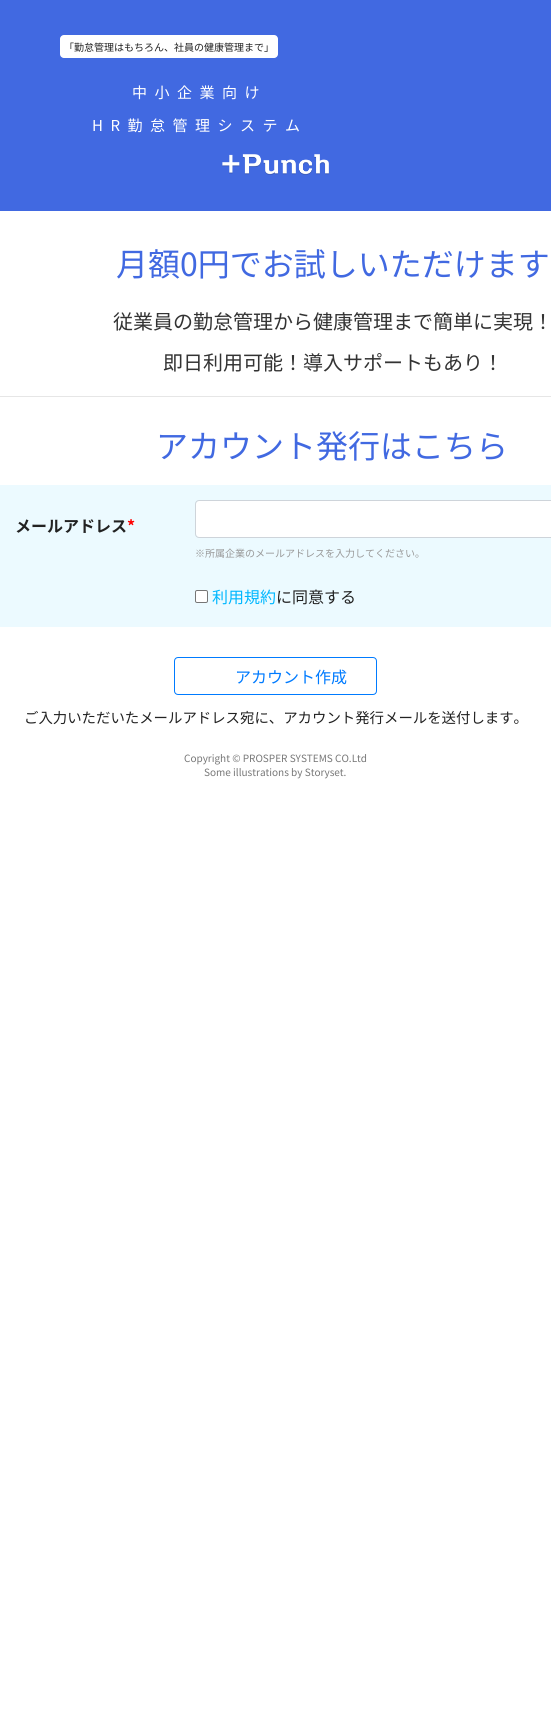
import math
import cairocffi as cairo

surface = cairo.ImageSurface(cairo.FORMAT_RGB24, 551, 1728)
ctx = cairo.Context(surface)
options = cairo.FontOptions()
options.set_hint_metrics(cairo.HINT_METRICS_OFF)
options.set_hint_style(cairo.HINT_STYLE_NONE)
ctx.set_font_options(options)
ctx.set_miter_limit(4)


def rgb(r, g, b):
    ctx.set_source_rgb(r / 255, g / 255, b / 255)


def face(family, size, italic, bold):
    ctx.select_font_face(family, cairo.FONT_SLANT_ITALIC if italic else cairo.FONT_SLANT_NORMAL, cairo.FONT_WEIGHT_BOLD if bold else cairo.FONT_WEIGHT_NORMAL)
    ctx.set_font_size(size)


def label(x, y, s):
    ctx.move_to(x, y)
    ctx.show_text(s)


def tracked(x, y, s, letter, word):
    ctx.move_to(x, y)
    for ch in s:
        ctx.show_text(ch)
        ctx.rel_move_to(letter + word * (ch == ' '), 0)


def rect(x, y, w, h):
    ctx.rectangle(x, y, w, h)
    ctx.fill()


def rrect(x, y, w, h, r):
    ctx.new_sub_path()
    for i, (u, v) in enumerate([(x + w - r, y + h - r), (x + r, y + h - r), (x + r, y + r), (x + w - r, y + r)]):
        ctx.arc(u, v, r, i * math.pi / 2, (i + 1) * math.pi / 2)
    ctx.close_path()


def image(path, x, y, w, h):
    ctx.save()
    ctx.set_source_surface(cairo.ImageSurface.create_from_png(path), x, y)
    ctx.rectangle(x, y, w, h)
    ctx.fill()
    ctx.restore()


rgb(255, 255, 255)
ctx.paint()
rgb(65, 105, 225)
rect(0, 0, 551, 211)
rgb(255, 255, 255)
rrect(60, 35, 218, 23, 4)
ctx.fill()
face('Noto Sans JP', 10, 0, 0)
rgb(34, 34, 34)
label(64, 51, '「勤怠管理はもちろん、社員の健康管理まで」')
face('Noto Sans JP', 15, 0, 0)
rgb(255, 255, 255)
tracked(132, 98, '中小企業向け', 7.5, 0)
tracked(92, 131, 'HR勤怠管理システム', 7.5, 0)
image('image0.png', 222, 154, 107, 21)
face('Noto Sans JP', 32, 0, 0)
rgb(65, 105, 225)
label(116, 276, '月額0円でお試しいただけます')
face('Noto Sans JP', 20, 0, 0)
rgb(51, 51, 51)
label(113, 329, '従業員の勤怠管理から健康管理まで簡単に実現！')
label(163, 370, '即日利用可能！導入サポートもあり！')
rgb(230, 230, 230)
rect(0, 396, 551, 1)
face('Noto Sans JP', 32, 0, 0)
rgb(65, 105, 225)
label(156, 458, 'アカウント発行はこちら')
rgb(236, 250, 255)
rect(0, 485, 551, 88)
face('Noto Sans JP', 16, 0, 1)
rgb(34, 34, 34)
label(15, 532, 'メールアドレス')
rgb(255, 0, 0)
label(127, 532, '*')
rgb(255, 255, 255)
rrect(196, 501, 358, 36, 3)
ctx.fill()
rrect(195.5, 500.5, 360, 37, 3.5)
rgb(206, 212, 218)
ctx.set_line_width(1)
ctx.stroke()
face('Noto Sans JP', 10, 0, 0)
rgb(153, 153, 153)
label(195, 557, '※所属企業のメールアドレスを入力してください。')
rgb(236, 250, 255)
rect(0, 573, 551, 54)
rgb(255, 255, 255)
rrect(195.5, 590.5, 12, 12, 1.5)
ctx.fill_preserve()
rgb(118, 118, 118)
ctx.stroke()
face('Noto Sans JP', 16, 0, 0)
rgb(0, 183, 255)
label(212, 603, '利用規約')
rgb(34, 34, 34)
label(276, 603, 'に同意する')
rrect(174.5, 657.5, 202, 37, 3.5)
rgb(0, 123, 255)
ctx.stroke()
label(235, 683, 'アカウント作成')
face('Noto Sans JP', 14.4, 0, 0)
rgb(34, 34, 34)
label(24, 723, 'ご入力いただいたメールアドレス宛に、アカウント発行メールを送付します。')
face('Noto Sans JP', 10, 0, 0)
rgb(119, 119, 119)
label(184, 762, 'Copyright © PROSPER SYSTEMS CO.Ltd')
label(204, 776, 'Some illustrations by Storyset.')
surface.write_to_png('render.png')
